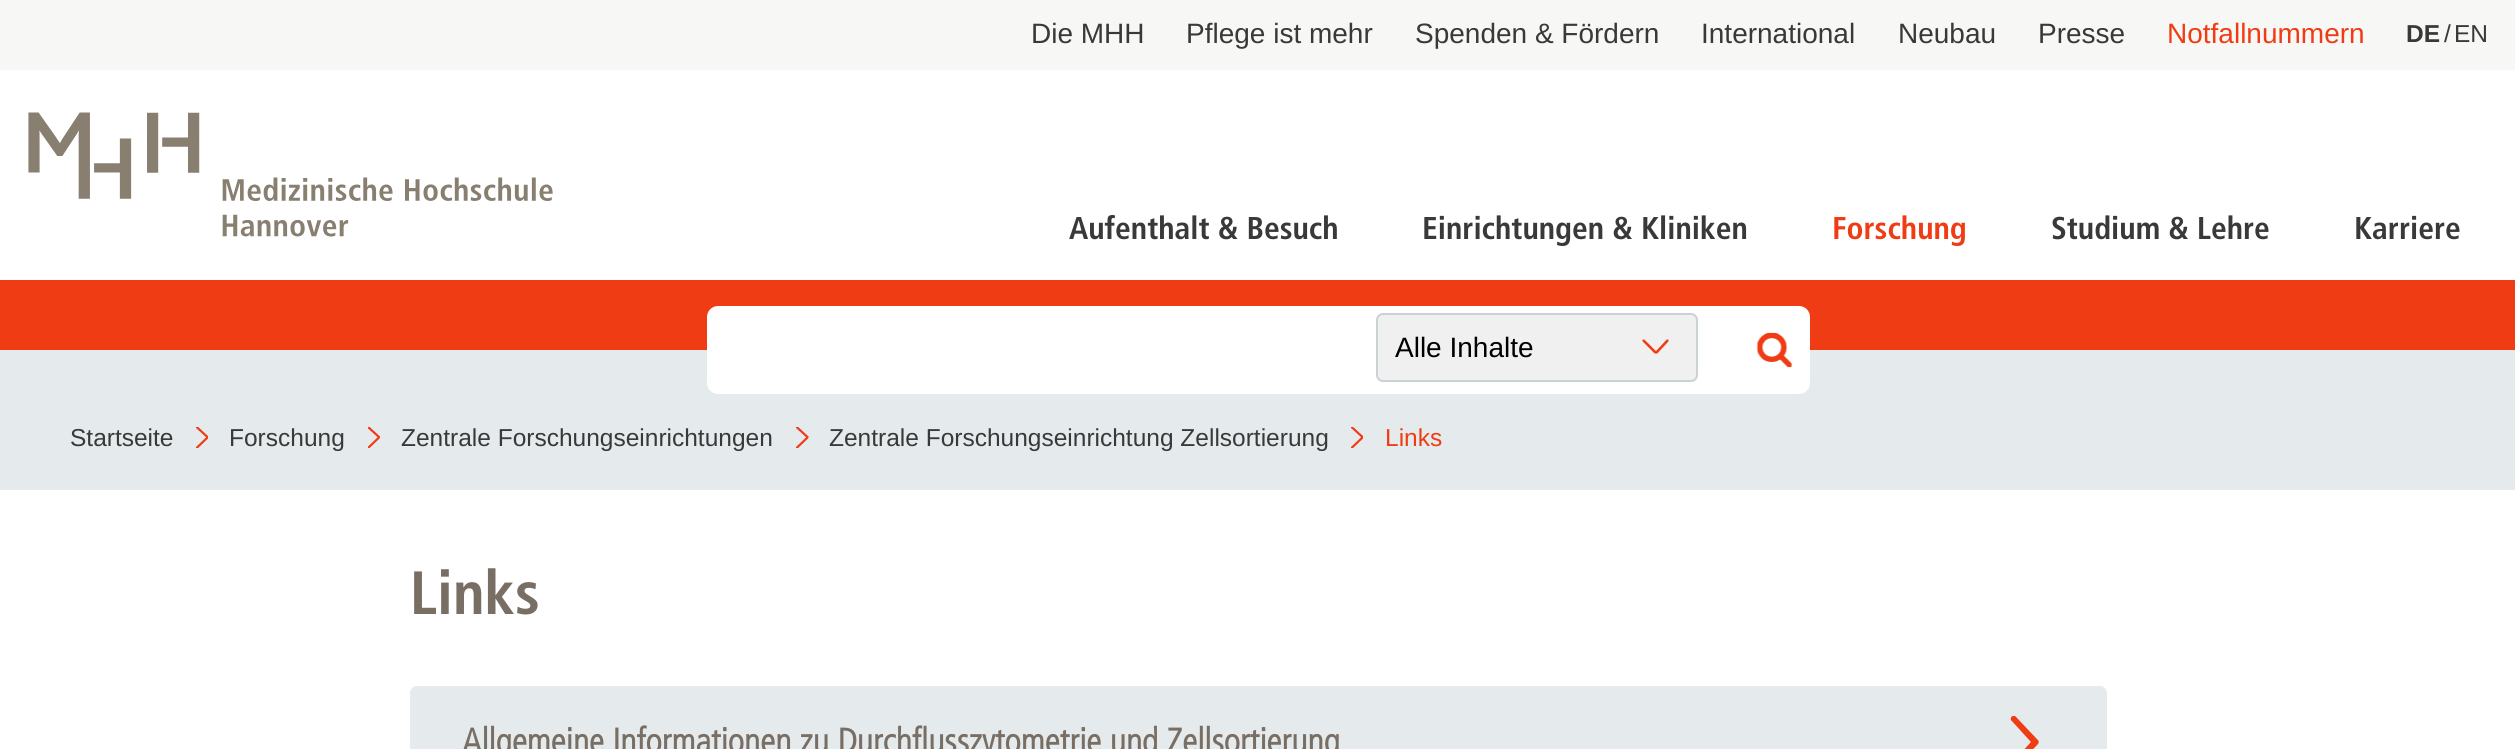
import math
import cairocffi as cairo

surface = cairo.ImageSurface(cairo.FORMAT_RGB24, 2515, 749)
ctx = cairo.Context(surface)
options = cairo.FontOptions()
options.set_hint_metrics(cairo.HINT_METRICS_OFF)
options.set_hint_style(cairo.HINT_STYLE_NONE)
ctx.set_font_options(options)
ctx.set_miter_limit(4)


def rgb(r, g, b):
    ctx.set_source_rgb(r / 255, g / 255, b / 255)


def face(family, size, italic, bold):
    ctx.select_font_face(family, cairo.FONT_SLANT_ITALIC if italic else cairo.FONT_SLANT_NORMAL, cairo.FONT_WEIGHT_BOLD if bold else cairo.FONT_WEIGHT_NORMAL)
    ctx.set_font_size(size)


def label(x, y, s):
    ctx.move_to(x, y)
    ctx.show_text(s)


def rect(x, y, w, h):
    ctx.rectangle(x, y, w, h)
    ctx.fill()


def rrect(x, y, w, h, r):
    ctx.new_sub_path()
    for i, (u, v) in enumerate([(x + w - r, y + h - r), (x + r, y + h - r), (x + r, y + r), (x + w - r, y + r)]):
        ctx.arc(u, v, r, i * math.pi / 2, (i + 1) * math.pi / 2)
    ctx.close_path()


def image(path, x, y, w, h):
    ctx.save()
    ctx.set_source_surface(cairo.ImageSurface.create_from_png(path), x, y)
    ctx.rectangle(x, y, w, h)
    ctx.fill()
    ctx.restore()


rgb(255, 255, 255)
ctx.paint()
rgb(247, 247, 245)
rect(0, 0, 2515, 70)
face('Liberation Sans', 28, 0, 0)
rgb(57, 57, 57)
label(1031, 43, 'Die MHH')
label(1186, 43, 'Pflege ist mehr')
label(1415, 43, 'Spenden & Fördern')
label(1701, 43, 'International')
label(1898, 43, 'Neubau')
label(2038, 43, 'Presse')
rgb(240, 60, 20)
label(2167, 43, 'Notfallnummern')
face('Liberation Sans', 24.5, 0, 1)
rgb(57, 57, 57)
label(2406, 42, 'DE')
face('Liberation Sans', 24.5, 0, 0)
label(2444, 42, '/')
label(2454, 42, 'EN')
image('image0.png', 28, 112, 525, 125)
face('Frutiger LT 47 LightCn', 31.5, 0, 1)
label(1069, 239, 'Aufenthalt & Besuch')
label(1422, 239, 'Einrichtungen & Kliniken')
rgb(240, 60, 20)
label(1832, 239, 'Forschung')
rgb(57, 57, 57)
label(2051, 239, 'Studium & Lehre')
label(2354, 239, 'Karriere')
rgb(240, 60, 20)
rect(0, 280, 2515, 70)
rgb(229, 234, 237)
rect(0, 350, 2515, 140)
rgb(255, 255, 255)
rrect(707, 306, 1103, 88, 11)
ctx.fill()
rgb(240, 240, 240)
rrect(1377, 314, 320, 67, 6)
ctx.fill_preserve()
rgb(202, 210, 213)
ctx.stroke()
face('Liberation Sans', 28, 0, 0)
rgb(0, 0, 0)
label(1395, 357, 'Alle Inhalte')
ctx.save()
ctx.new_path()
ctx.move_to(1668.5, 339.5)
ctx.line_to(1668.5, 353.5)
ctx.line_to(1642.5, 353.5)
ctx.line_to(1642.5, 339.5)
ctx.close_path()
ctx.clip()
ctx.new_path()
ctx.move_to(1668.5, 339.5)
ctx.line_to(1668.5, 353.5)
ctx.line_to(1642.5, 353.5)
ctx.line_to(1642.5, 339.5)
ctx.close_path()
ctx.clip()
ctx.new_path()
ctx.move_to(1668.5, 339.5)
ctx.line_to(1655.5, 353.5)
ctx.move_to(1642.5, 339.5)
ctx.line_to(1656.5, 353.5)
rgb(240, 60, 20)
ctx.set_line_width(2.6)
ctx.stroke()
ctx.restore()
image('image1.png', 1756, 332, 37, 36)
face('Liberation Sans', 24.5, 0, 0)
rgb(57, 57, 57)
label(70, 446, 'Startseite')
ctx.save()
ctx.rectangle(196, 427, 12, 21)
ctx.clip()
ctx.new_path()
ctx.move_to(196, 426.5)
ctx.line_to(208, 437.5)
ctx.move_to(196, 448.5)
ctx.line_to(208, 437)
rgb(240, 60, 20)
ctx.set_line_width(2.2)
ctx.stroke()
ctx.restore()
label(229, 446, 'Forschung')
ctx.save()
ctx.rectangle(368, 427, 12, 21)
ctx.clip()
ctx.new_path()
ctx.move_to(367.5, 426.5)
ctx.line_to(379.5, 437.5)
ctx.move_to(367.5, 448.5)
ctx.line_to(379.5, 437)
rgb(240, 60, 20)
ctx.set_line_width(2.2)
ctx.stroke()
ctx.restore()
label(401, 446, 'Zentrale Forschungseinrichtungen')
ctx.save()
ctx.rectangle(796, 427, 13, 21)
ctx.clip()
ctx.new_path()
ctx.move_to(796, 426.5)
ctx.line_to(808, 437.5)
ctx.move_to(796, 448.5)
ctx.line_to(808, 437)
rgb(240, 60, 20)
ctx.set_line_width(2.2)
ctx.stroke()
ctx.restore()
label(829, 446, 'Zentrale Forschungseinrichtung Zellsortierung')
ctx.save()
ctx.rectangle(1351, 427, 12, 21)
ctx.clip()
ctx.new_path()
ctx.move_to(1351, 426.5)
ctx.line_to(1363, 437.5)
ctx.move_to(1351, 448.5)
ctx.line_to(1363, 437)
rgb(240, 60, 20)
ctx.set_line_width(2.2)
ctx.stroke()
ctx.restore()
rgb(240, 60, 20)
label(1385, 446, 'Links')
face('Frutiger LT 47 LightCn', 61, 0, 1)
rgb(120, 110, 100)
label(410, 614, 'Links')
rgb(229, 234, 237)
rrect(410, 686, 1697, 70, 7)
ctx.fill()
face('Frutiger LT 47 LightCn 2', 35, 0, 1)
rgb(120, 110, 100)
label(462, 753, 'Allgemeine Informationen zu Durchflusszytometrie und Zellsortierung')
image('image2.png', 2010, 716, 29, 33)
surface.write_to_png('render.png')
